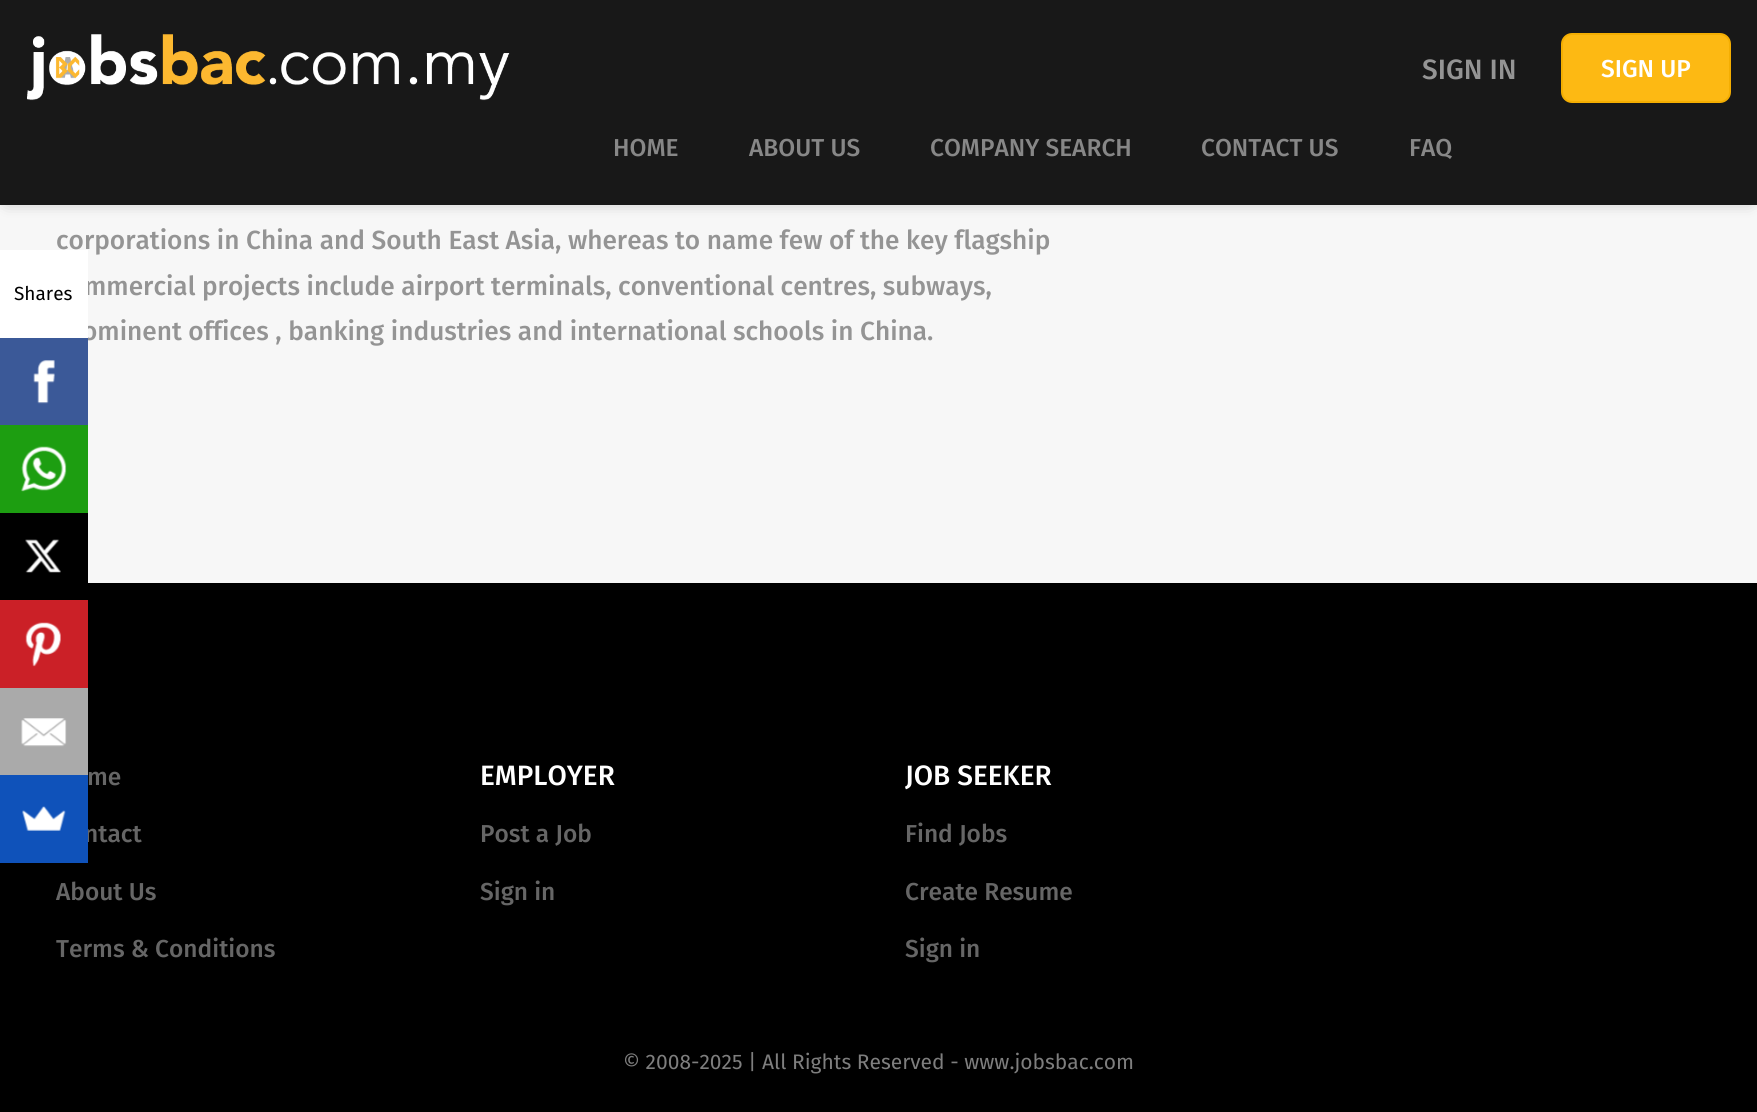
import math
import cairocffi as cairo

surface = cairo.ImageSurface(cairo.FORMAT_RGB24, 1757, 1112)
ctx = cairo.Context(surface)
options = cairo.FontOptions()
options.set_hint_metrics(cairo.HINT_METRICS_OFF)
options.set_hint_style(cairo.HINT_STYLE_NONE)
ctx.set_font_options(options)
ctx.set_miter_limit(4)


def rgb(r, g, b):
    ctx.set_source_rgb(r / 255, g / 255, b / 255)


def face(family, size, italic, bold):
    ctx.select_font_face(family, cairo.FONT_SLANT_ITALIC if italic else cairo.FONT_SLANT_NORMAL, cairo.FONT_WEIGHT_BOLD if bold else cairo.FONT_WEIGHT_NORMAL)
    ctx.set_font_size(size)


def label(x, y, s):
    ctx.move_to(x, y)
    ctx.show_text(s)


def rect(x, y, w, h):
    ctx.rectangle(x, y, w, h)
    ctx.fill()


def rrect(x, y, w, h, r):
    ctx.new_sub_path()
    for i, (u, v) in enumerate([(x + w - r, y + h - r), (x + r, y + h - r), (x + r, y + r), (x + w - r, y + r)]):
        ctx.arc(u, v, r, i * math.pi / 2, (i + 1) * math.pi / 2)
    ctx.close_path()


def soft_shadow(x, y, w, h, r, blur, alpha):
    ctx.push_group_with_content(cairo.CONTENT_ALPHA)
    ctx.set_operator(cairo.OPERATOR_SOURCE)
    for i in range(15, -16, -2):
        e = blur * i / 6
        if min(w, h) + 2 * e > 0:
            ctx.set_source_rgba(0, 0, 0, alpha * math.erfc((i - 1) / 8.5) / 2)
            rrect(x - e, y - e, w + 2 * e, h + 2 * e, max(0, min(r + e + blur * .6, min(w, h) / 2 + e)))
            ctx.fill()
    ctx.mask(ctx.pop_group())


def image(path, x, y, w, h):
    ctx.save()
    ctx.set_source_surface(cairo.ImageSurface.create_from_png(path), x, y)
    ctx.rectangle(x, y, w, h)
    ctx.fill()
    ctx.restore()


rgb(247, 247, 247)
ctx.paint()
rgb(0, 0, 0)
soft_shadow(7, 11, 1743, 190, 0, 8, 0.3)
rgb(24, 24, 24)
rect(0, 0, 1757, 205)
image('image0.png', 27, 34, 483, 67)
face('Fira Sans Medium', 28, 0, 0)
rgb(148, 148, 148)
label(1422, 79, 'SIGN IN')
rgb(253, 185, 19)
rrect(1562, 34, 168, 68, 10)
ctx.fill_preserve()
rgb(244, 174, 2)
ctx.stroke()
face('Fira Sans Medium', 24.5, 0, 0)
rgb(255, 255, 255)
label(1601, 77, 'SIGN UP')
rgb(135, 135, 135)
label(613, 156, 'HOME')
label(749, 156, 'ABOUT US')
label(930, 156, 'COMPANY SEARCH')
label(1201, 156, 'CONTACT US')
label(1409, 156, 'FAQ')
face('Fira Sans Medium', 26.25, 0, 0)
rgb(148, 148, 148)
label(56, 249, 'corporations in China and South East Asia, whereas to name few of the key flagship')
label(84, 295, 'mmercial projects include airport terminals, conventional centres, subways,')
label(82, 340, 'ominent offices , banking industries and international schools in China.')
rgb(255, 255, 255)
rect(0, 250, 88, 88)
face('Fira Sans', 19, 0, 0)
rgb(0, 0, 0)
label(14, 300, 'Shares')
rgb(59, 89, 152)
rect(0, 338, 88, 87)
image('image1.png', 33, 360, 22, 44)
rgb(29, 158, 17)
rect(0, 425, 88, 88)
image('image2.png', 21, 446, 46, 46)
rgb(0, 0, 0)
rect(0, 513, 88, 70)
image('image3.png', 25, 539, 36, 34)
rect(0, 583, 1757, 529)
rgb(203, 32, 39)
rect(0, 600, 88, 88)
image('image4.png', 25, 622, 36, 45)
rgb(170, 170, 170)
rect(0, 688, 88, 87)
image('image5.png', 21, 718, 46, 29)
face('Fira Sans Medium', 24.5, 0, 0)
rgb(102, 102, 102)
label(84, 842, 'ntact')
rgb(15, 82, 186)
rect(0, 775, 88, 88)
image('image6.png', 22, 806, 44, 25)
rgb(102, 102, 102)
label(87, 785, 'me')
label(56, 900, 'About Us')
label(56, 957, 'Terms & Conditions')
face('Fira Sans Medium', 28, 0, 0)
rgb(255, 255, 255)
label(480, 785, 'EMPLOYER')
face('Fira Sans Medium', 24.5, 0, 0)
rgb(102, 102, 102)
label(480, 842, 'Post a Job')
label(480, 900, 'Sign in')
face('Fira Sans Medium', 28, 0, 0)
rgb(255, 255, 255)
label(905, 785, 'JOB SEEKER')
face('Fira Sans Medium', 24.5, 0, 0)
rgb(102, 102, 102)
label(905, 842, 'Find Jobs')
label(905, 900, 'Create Resume')
label(905, 957, 'Sign in')
face('Fira Sans', 21, 0, 0)
rgb(126, 126, 126)
label(623, 1069, '© 2008-2025 | All Rights Reserved - www.jobsbac.com')
surface.write_to_png('render.png')
